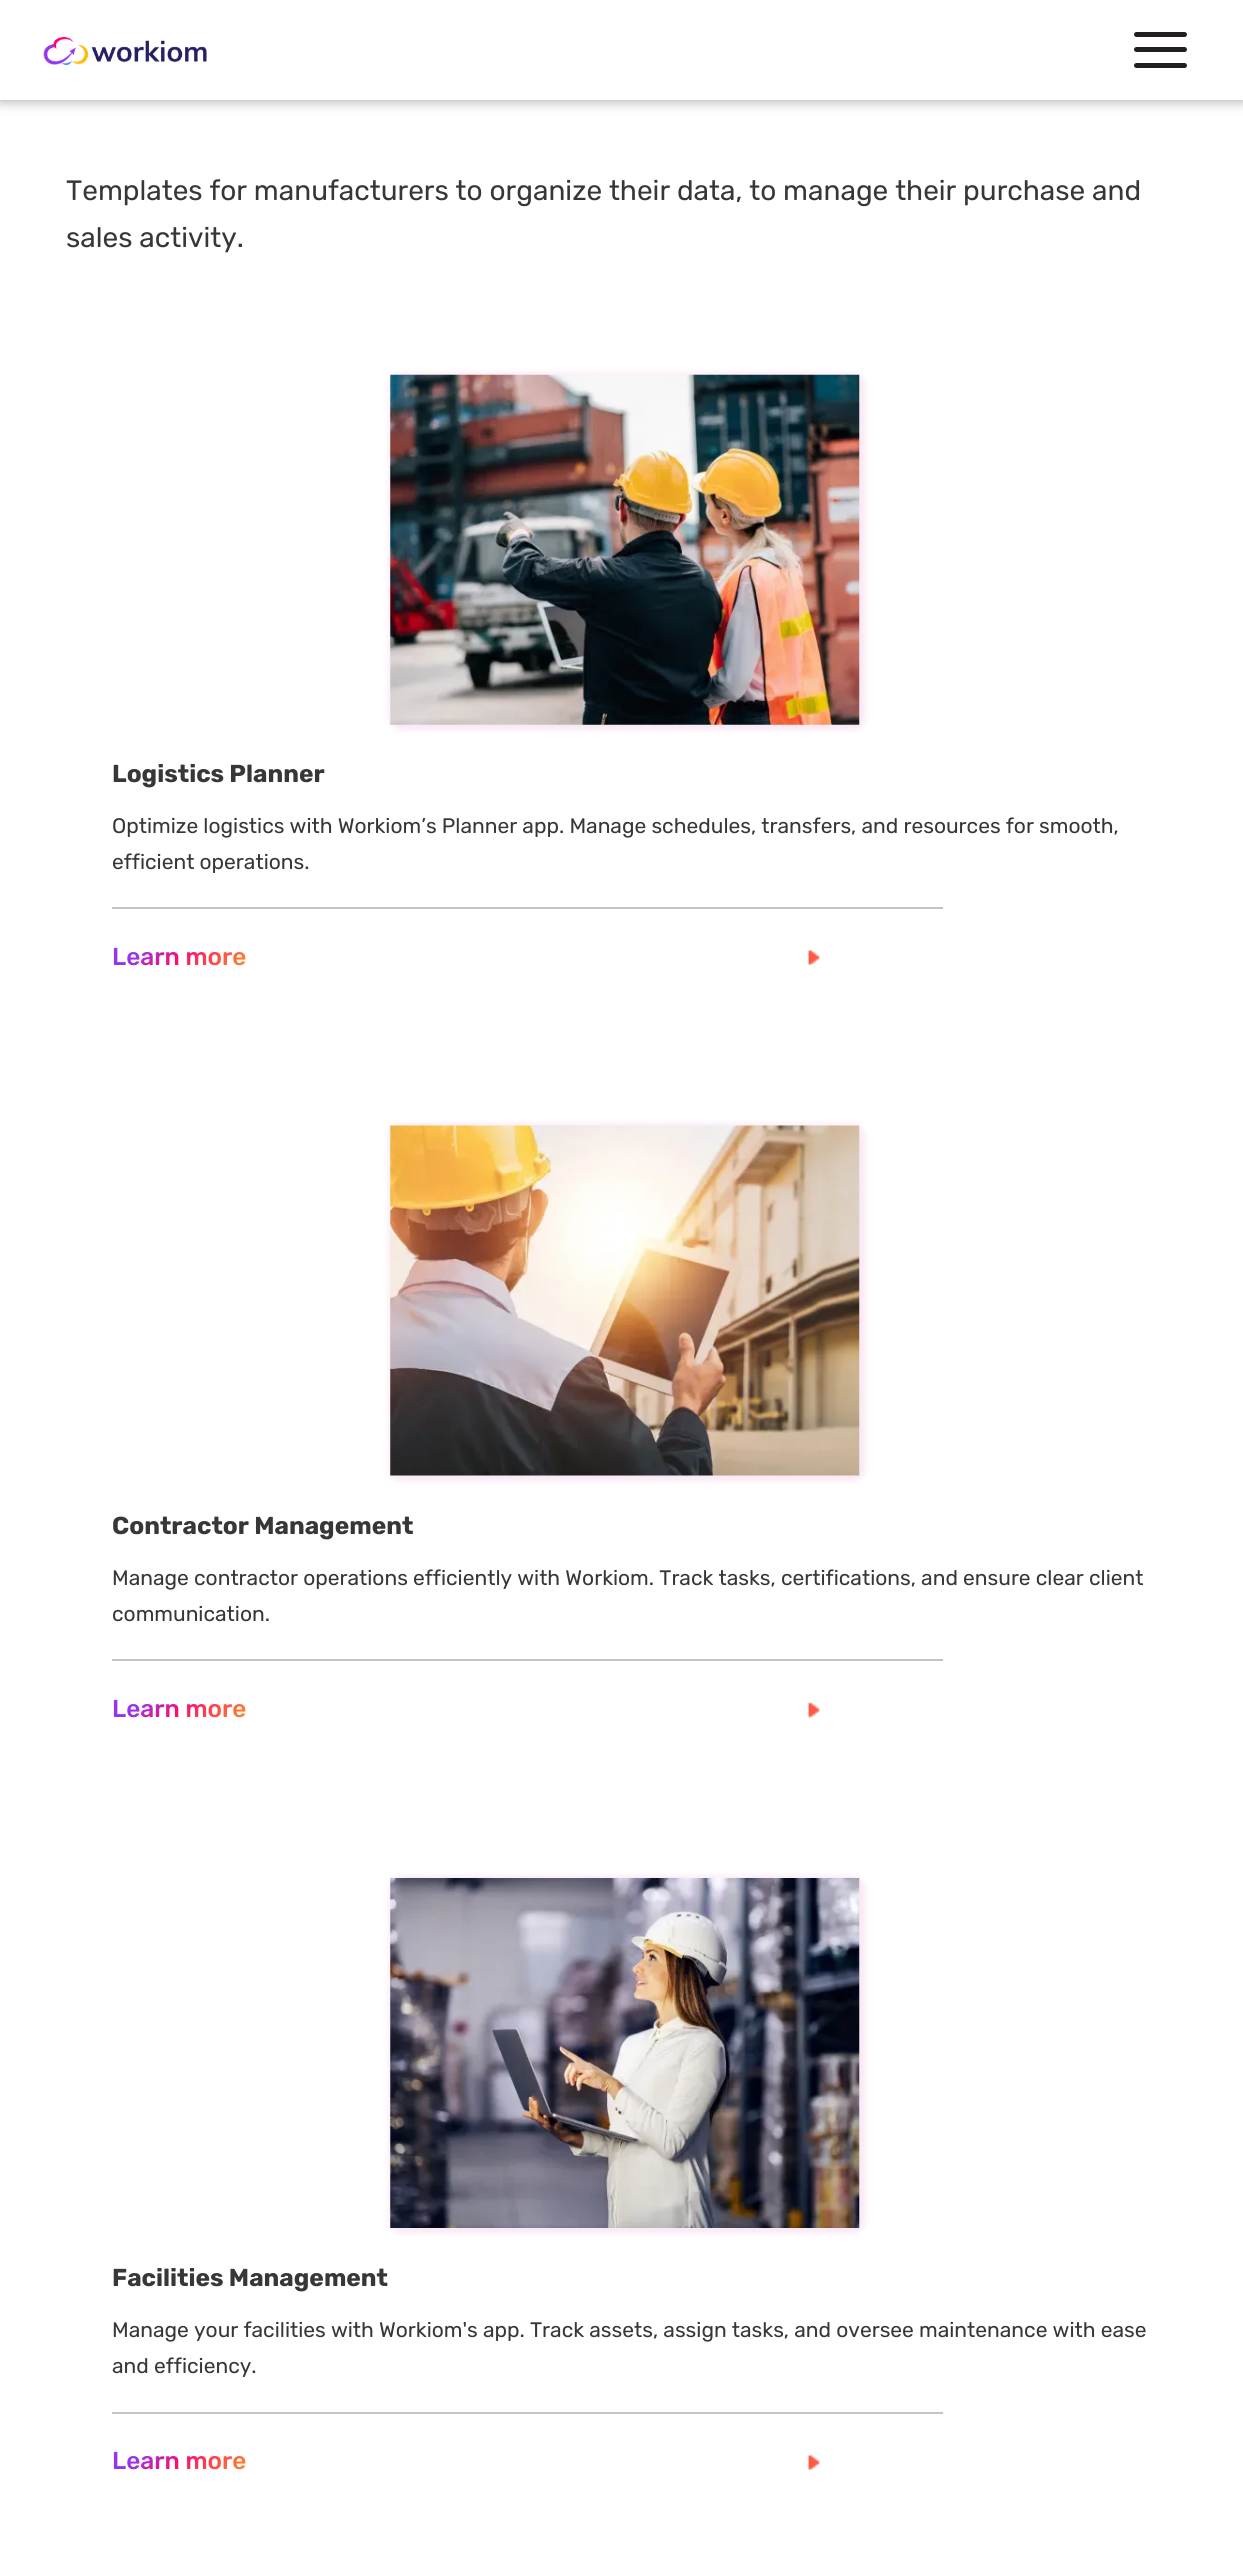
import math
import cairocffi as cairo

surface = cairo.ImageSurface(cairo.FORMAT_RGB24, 1243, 2574)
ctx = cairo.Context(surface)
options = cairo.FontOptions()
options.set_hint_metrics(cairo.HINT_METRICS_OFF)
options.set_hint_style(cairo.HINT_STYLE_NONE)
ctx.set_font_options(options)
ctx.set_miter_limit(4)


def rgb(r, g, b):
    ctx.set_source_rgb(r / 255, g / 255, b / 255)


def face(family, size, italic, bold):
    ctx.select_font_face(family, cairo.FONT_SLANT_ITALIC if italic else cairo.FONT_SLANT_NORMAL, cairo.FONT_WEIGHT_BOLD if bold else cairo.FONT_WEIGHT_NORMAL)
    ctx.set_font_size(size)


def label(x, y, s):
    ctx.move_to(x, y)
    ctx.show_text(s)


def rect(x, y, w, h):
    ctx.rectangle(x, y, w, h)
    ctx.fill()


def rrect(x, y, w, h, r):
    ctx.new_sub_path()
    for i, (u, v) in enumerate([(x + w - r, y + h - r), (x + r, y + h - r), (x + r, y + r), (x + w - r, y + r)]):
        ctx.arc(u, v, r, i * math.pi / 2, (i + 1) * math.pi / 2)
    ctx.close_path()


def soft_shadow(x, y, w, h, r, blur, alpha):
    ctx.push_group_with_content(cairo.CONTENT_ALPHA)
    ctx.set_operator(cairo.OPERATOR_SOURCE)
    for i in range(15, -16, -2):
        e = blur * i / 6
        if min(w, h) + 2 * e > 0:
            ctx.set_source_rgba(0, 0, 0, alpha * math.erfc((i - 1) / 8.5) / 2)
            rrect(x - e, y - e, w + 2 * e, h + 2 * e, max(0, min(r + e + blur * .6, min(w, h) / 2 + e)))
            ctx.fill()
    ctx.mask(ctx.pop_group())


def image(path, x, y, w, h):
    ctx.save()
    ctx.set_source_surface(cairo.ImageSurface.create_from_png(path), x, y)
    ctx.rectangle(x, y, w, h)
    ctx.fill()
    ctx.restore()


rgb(255, 255, 255)
ctx.paint()
rgb(0, 0, 0)
soft_shadow(0, 0, 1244, 100, 0, 7, 0.38)
rgb(255, 255, 255)
rect(0, 0, 1243, 100)
image('image0.png', 43, 36, 164, 29)
rgb(35, 31, 32)
rrect(1134, 32, 53, 5, 2.5)
ctx.fill()
rrect(1134, 47, 53, 5, 2.5)
ctx.fill()
rrect(1134, 63, 53, 5, 2.5)
ctx.fill()
face('Rubik', 28, 0, 0)
rgb(55, 55, 55)
label(66, 200, 'Templates for manufacturers to organize their data, to manage their purchase and')
label(66, 247, 'sales activity.')
rgb(130, 71, 244)
soft_shadow(389, 373, 476, 357, 11, 3.5, 0.06)
rgb(255, 26, 97)
soft_shadow(389, 373, 476, 357, 11, 3.5, 0.06)
image('image1.png', 390, 374, 470, 351)
face('Rubik', 24.5, 0, 1)
rgb(55, 55, 55)
label(112, 782, 'Logistics Planner')
face('Rubik', 21, 0, 0)
label(112, 833, 'Optimize logistics with Workiom’s Planner app. Manage schedules, transfers, and resources for smooth,')
label(112, 869, 'efficient operations.')
rgb(196, 196, 196)
rect(112, 907, 831, 2)
image('image2.png', 808, 950, 12, 15)
face('Rubik Medium', 24.5, 0, 0)
gradient = cairo.LinearGradient(249, 1011, 143, 905)
gradient.add_color_stop_rgba(0, 0.306, 0.525, 0.969, 1)
gradient.add_color_stop_rgba(0.1, 0.992, 0.737, 0.043, 1)
gradient.add_color_stop_rgba(0.57, 1, 0.051, 0.431, 1)
gradient.add_color_stop_rgba(0.81, 0.588, 0.208, 0.941, 1)
gradient.add_color_stop_rgba(0.9, 0.588, 0.208, 0.941, 1)
ctx.set_source(gradient)
label(112, 965, 'Learn more')
rgb(130, 71, 244)
soft_shadow(389, 1124, 476, 357, 11, 3.5, 0.06)
rgb(255, 26, 97)
soft_shadow(389, 1124, 476, 357, 11, 3.5, 0.06)
image('image3.png', 390, 1125, 470, 351)
face('Rubik', 24.5, 0, 1)
rgb(55, 55, 55)
label(112, 1534, 'Contractor Management')
face('Rubik', 21, 0, 0)
label(112, 1585, 'Manage contractor operations efficiently with Workiom. Track tasks, certifications, and ensure clear client')
label(112, 1621, 'communication.')
rgb(196, 196, 196)
rect(112, 1659, 831, 2)
image('image4.png', 808, 1702, 12, 16)
face('Rubik Medium', 24.5, 0, 0)
gradient = cairo.LinearGradient(249, 1763, 143, 1657)
gradient.add_color_stop_rgba(0, 0.306, 0.525, 0.969, 1)
gradient.add_color_stop_rgba(0.1, 0.992, 0.737, 0.043, 1)
gradient.add_color_stop_rgba(0.57, 1, 0.051, 0.431, 1)
gradient.add_color_stop_rgba(0.81, 0.588, 0.208, 0.941, 1)
gradient.add_color_stop_rgba(0.9, 0.588, 0.208, 0.941, 1)
ctx.set_source(gradient)
label(112, 1717, 'Learn more')
rgb(130, 71, 244)
soft_shadow(389, 1876, 476, 357, 11, 3.5, 0.06)
rgb(255, 26, 97)
soft_shadow(389, 1876, 476, 357, 11, 3.5, 0.06)
image('image5.png', 390, 1878, 470, 350)
face('Rubik', 24.5, 0, 1)
rgb(55, 55, 55)
label(112, 2286, 'Facilities Management')
face('Rubik', 21, 0, 0)
label(112, 2337, 'Manage your facilities with Workiom\'s app. Track assets, assign tasks, and oversee maintenance with ease')
label(112, 2373, 'and efficiency.')
rgb(196, 196, 196)
rect(112, 2412, 831, 2)
image('image2.png', 808, 2455, 12, 15)
face('Rubik Medium', 24.5, 0, 0)
gradient = cairo.LinearGradient(249, 2515, 143, 2409)
gradient.add_color_stop_rgba(0, 0.306, 0.525, 0.969, 1)
gradient.add_color_stop_rgba(0.1, 0.992, 0.737, 0.043, 1)
gradient.add_color_stop_rgba(0.57, 1, 0.051, 0.431, 1)
gradient.add_color_stop_rgba(0.81, 0.588, 0.208, 0.941, 1)
gradient.add_color_stop_rgba(0.9, 0.588, 0.208, 0.941, 1)
ctx.set_source(gradient)
label(112, 2469, 'Learn more')
surface.write_to_png('render.png')
